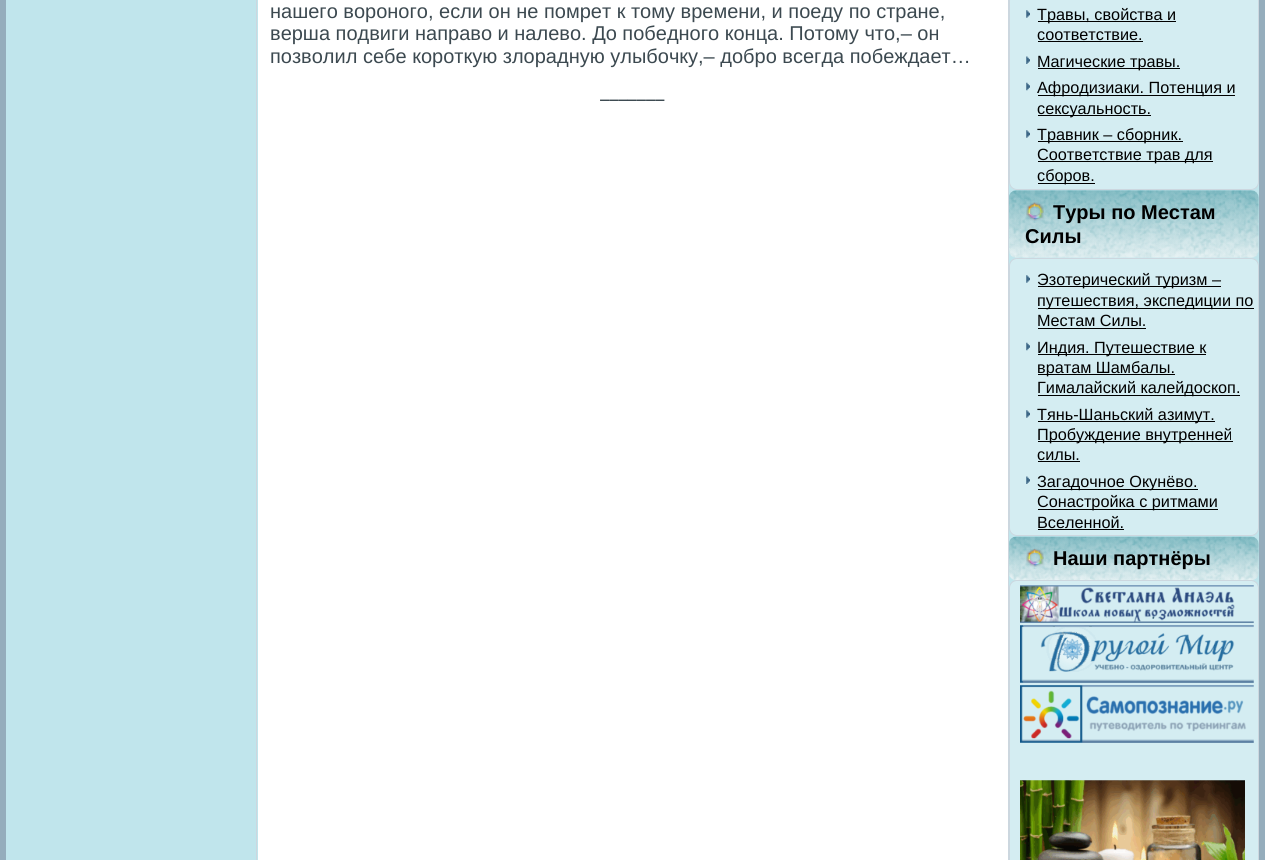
import math
import cairocffi as cairo

surface = cairo.ImageSurface(cairo.FORMAT_RGB24, 1265, 860)
ctx = cairo.Context(surface)
options = cairo.FontOptions()
options.set_hint_metrics(cairo.HINT_METRICS_OFF)
options.set_hint_style(cairo.HINT_STYLE_NONE)
ctx.set_font_options(options)
ctx.set_miter_limit(4)


def rgb(r, g, b):
    ctx.set_source_rgb(r / 255, g / 255, b / 255)


def face(family, size, italic, bold):
    ctx.select_font_face(family, cairo.FONT_SLANT_ITALIC if italic else cairo.FONT_SLANT_NORMAL, cairo.FONT_WEIGHT_BOLD if bold else cairo.FONT_WEIGHT_NORMAL)
    ctx.set_font_size(size)


def label(x, y, s):
    ctx.move_to(x, y)
    ctx.show_text(s)


def rect(x, y, w, h):
    ctx.rectangle(x, y, w, h)
    ctx.fill()


def rrect(x, y, w, h, r):
    ctx.new_sub_path()
    for i, (u, v) in enumerate([(x + w - r, y + h - r), (x + r, y + h - r), (x + r, y + r), (x + w - r, y + r)]):
        ctx.arc(u, v, r, i * math.pi / 2, (i + 1) * math.pi / 2)
    ctx.close_path()


def image(path, x, y, w, h):
    ctx.save()
    ctx.set_source_surface(cairo.ImageSurface.create_from_png(path), x, y)
    ctx.rectangle(x, y, w, h)
    ctx.fill()
    ctx.restore()


rgb(255, 255, 255)
ctx.paint()
ctx.rectangle(3, -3, 1259, 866)
rgb(149, 173, 188)
ctx.set_line_width(6)
ctx.stroke()
rgb(192, 229, 236)
rect(6, 0, 252, 860)
rgb(204, 215, 223)
rect(256, 0, 1, 860)
face('Liberation Sans', 20, 0, 0)
rgb(60, 73, 80)
label(270, 18, 'нашего вороного, если он не помрет к тому времени, и поеду по стране,')
label(270, 40, 'верша подвиги направо и налево. До победного конца. Потому что,– он')
label(270, 63, 'позволил себе короткую злорадную улыбочку,– добро всегда побеждает…')
face('Cabin', 16.25, 0, 0)
label(600, 99, '_______')
rgb(192, 229, 236)
rect(1009, 0, 250, 588)
rgb(204, 215, 223)
rect(1008, 0, 1, 860)
rgb(212, 237, 242)
rrect(1009.5, -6.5, 249, 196, 7.5)
ctx.fill_preserve()
rgb(204, 215, 223)
ctx.set_line_width(1)
ctx.stroke()
image('image0.png', 1026, 10, 4, 8)
rgb(0, 0, 0)
rect(1038, 21, 138, 1)
face('Liberation Sans', 16.25, 0, 0)
label(1037, 20, 'Травы, свойства и')
label(1037, 40, 'соответствие.')
rect(1038, 41, 105, 1)
image('image1.png', 1026, 56, 4, 8)
rect(1038, 68, 142, 1)
label(1037, 67, 'Магические травы.')
image('image2.png', 1026, 82, 4, 9)
rect(1038, 95, 197, 1)
label(1037, 93, 'Афродизиаки. Потенция и')
rect(1038, 115, 113, 1)
label(1037, 114, 'сексуальность.')
image('image0.png', 1026, 130, 4, 8)
rect(1038, 141, 145, 1)
label(1037, 140, 'Травник – сборник.')
rect(1038, 161, 175, 1)
label(1037, 160, 'Соответствие трав для')
rect(1038, 183, 57, 1)
label(1037, 181, 'сборов.')
image('image3.png', 1009, 190, 250, 68)
image('image4.png', 1026, 202, 18, 19)
face('Liberation Sans', 20, 0, 1)
label(1053, 219, 'Туры по Местам')
label(1025, 243, 'Силы')
rgb(212, 237, 242)
rrect(1009.5, 258.5, 249, 277, 7.5)
ctx.fill_preserve()
rgb(204, 215, 223)
ctx.stroke()
image('image0.png', 1026, 275, 4, 8)
rgb(0, 0, 0)
rect(1038, 286, 183, 1)
face('Liberation Sans', 16.25, 0, 0)
label(1037, 285, 'Эзотерический туризм –')
rect(1038, 308, 216, 1)
label(1037, 306, 'путешествия, экспедиции по')
label(1037, 326, 'Местам Силы.')
rect(1038, 328, 108, 1)
image('image2.png', 1026, 342, 4, 9)
rect(1038, 354, 168, 1)
label(1037, 353, 'Индия. Путешествие к')
rect(1038, 374, 137, 1)
label(1037, 373, 'вратам Шамбалы.')
rect(1038, 395, 202, 1)
label(1037, 393, 'Гималайский калейдоскоп.')
image('image0.png', 1026, 410, 4, 8)
rect(1038, 421, 177, 1)
label(1037, 420, 'Тянь-Шаньский азимут.')
rect(1038, 441, 195, 1)
label(1037, 440, 'Пробуждение внутренней')
label(1037, 460, 'силы.')
rect(1038, 461, 42, 1)
image('image1.png', 1026, 476, 4, 8)
rect(1038, 489, 160, 1)
label(1037, 487, 'Загадочное Окунёво.')
rect(1038, 509, 180, 1)
label(1037, 507, 'Сонастройка с ритмами')
label(1037, 528, 'Вселенной.')
rect(1038, 529, 86, 1)
image('image5.png', 1009, 536, 250, 44)
image('image6.png', 1026, 548, 18, 19)
face('Liberation Sans', 20, 0, 1)
label(1053, 565, 'Наши партнёры')
rgb(212, 237, 242)
rrect(1009.5, 580.5, 249, 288, 7.5)
ctx.fill_preserve()
rgb(204, 215, 223)
ctx.stroke()
image('image7.png', 1020, 585, 234, 38)
image('image8.png', 1020, 625, 234, 58)
image('image9.png', 1020, 685, 234, 58)
image('image10.png', 1020, 780, 225, 80)
surface.write_to_png('render.png')
